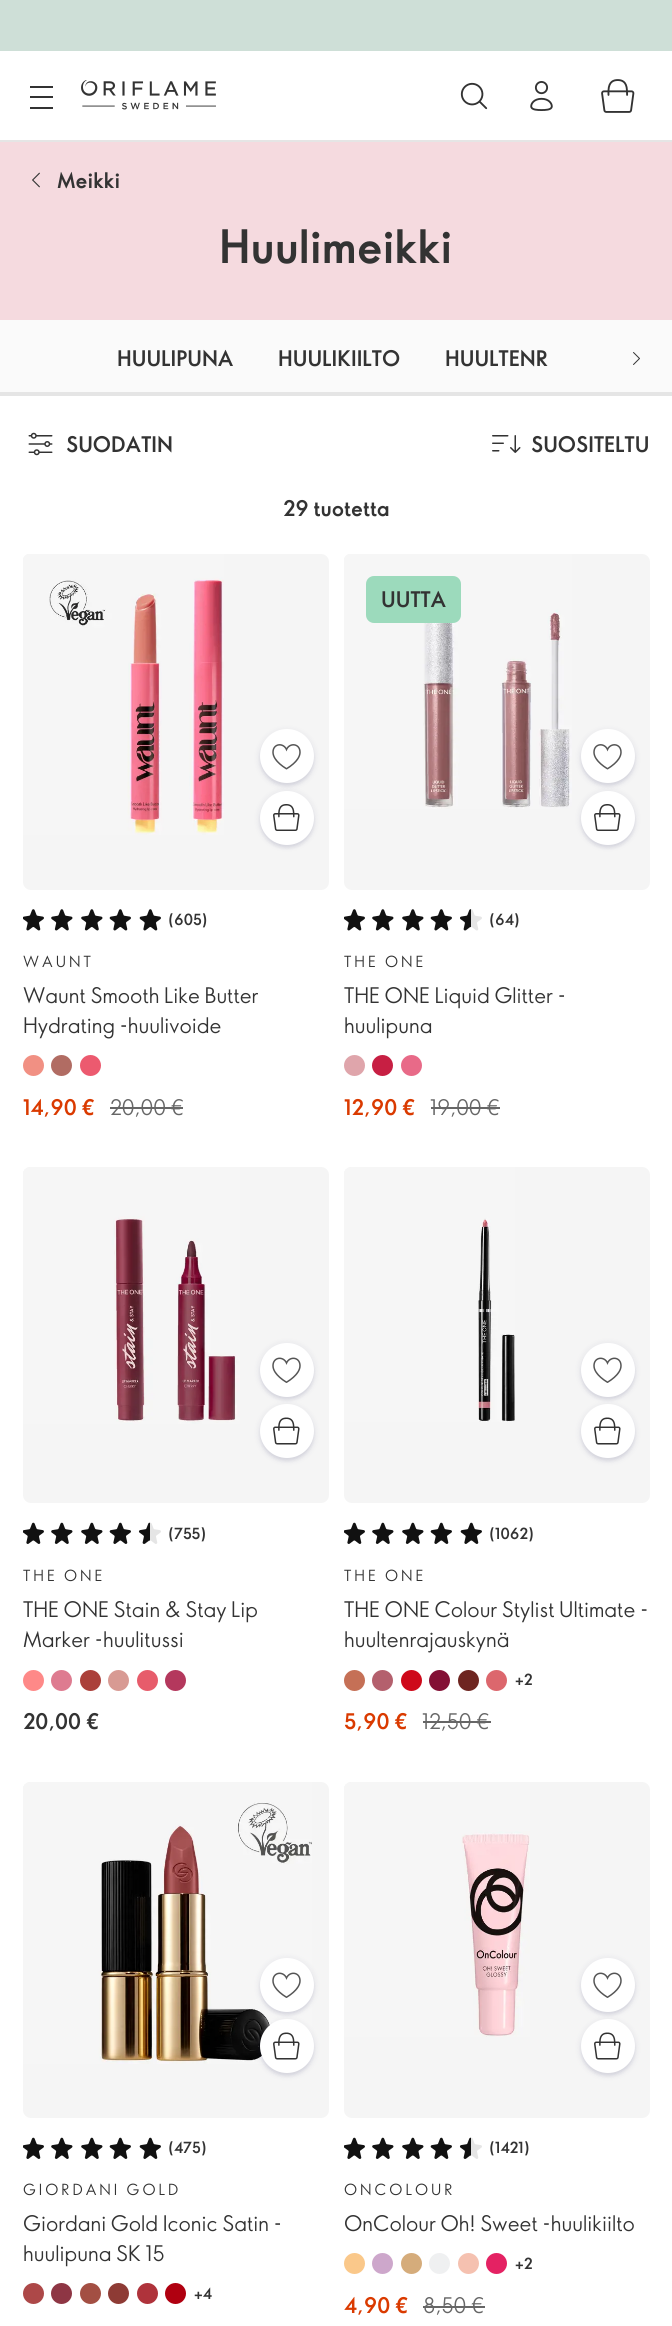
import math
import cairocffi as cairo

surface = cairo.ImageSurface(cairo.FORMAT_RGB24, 672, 2326)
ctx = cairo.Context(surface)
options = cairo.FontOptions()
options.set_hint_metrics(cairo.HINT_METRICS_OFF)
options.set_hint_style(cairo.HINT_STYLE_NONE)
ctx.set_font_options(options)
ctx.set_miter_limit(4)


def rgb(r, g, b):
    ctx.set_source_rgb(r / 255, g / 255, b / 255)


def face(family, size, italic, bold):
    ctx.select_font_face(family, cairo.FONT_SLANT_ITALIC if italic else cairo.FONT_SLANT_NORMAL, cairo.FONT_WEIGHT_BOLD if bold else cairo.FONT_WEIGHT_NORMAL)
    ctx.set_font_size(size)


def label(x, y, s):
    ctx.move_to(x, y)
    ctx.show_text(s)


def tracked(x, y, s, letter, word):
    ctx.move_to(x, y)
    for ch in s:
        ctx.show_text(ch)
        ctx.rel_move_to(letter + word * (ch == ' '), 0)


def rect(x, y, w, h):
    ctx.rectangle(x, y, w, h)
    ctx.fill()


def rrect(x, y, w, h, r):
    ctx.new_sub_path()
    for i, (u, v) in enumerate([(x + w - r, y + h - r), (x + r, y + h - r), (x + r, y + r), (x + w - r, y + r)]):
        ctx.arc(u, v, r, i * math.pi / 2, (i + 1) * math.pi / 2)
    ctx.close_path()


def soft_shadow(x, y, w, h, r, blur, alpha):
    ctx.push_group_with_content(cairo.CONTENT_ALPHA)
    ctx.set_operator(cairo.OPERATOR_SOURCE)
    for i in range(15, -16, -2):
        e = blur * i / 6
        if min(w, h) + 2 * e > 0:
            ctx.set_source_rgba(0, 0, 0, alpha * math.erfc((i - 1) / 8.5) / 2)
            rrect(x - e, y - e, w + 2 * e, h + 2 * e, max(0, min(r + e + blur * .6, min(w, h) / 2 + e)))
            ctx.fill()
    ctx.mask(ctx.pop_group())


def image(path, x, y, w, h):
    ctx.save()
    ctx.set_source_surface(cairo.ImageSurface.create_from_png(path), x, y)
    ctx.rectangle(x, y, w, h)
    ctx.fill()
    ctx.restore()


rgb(255, 255, 255)
ctx.paint()
rgb(229, 229, 229)
rect(0, 140, 672, 2)
rgb(206, 223, 215)
rect(0, 0, 672, 51)
rgb(51, 51, 51)
rect(30, 86, 23, 2)
rect(30, 96, 23, 2)
rect(30, 107, 23, 2)
image('image0.png', 81, 80, 135, 30)
image('image1.png', 460, 82, 28, 28)
image('image2.png', 530, 81, 23, 30)
image('image3.png', 601, 79, 34, 34)
rgb(245, 218, 223)
rect(0, 142, 672, 178)
image('image4.png', 32, 172, 8, 16)
face('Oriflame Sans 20', 21, 0, 1)
rgb(51, 51, 51)
label(57, 188, 'Meikki')
face('Oriflame Sans 20', 45, 0, 1)
label(219, 263, 'Huulimeikki')
rgb(250, 250, 250)
rect(0, 320, 672, 72)
face('Oriflame Sans 20', 21, 0, 1)
rgb(51, 51, 51)
label(117, 366, 'HUULIPUNA')
label(278, 366, 'HUULIKIILTO')
label(445, 366, 'HUULTENR')
image('image5.png', 633, 352, 7, 13)
rgb(229, 229, 229)
rect(0, 392, 672, 4)
image('image6.png', 28, 432, 25, 24)
rgb(51, 51, 51)
label(66, 452, 'SUODATIN')
image('image7.png', 492, 435, 29, 18)
label(531, 452, 'SUOSITELTU')
label(283, 516, '29 tuotetta')
rgb(245, 245, 245)
ctx.new_path()
ctx.move_to(31, 554)
ctx.line_to(321, 554)
ctx.curve_to(325.5, 554, 329, 557.5, 329, 562)
ctx.line_to(329, 860)
ctx.line_to(23, 860)
ctx.line_to(23, 562)
ctx.curve_to(23, 557.5, 26.5, 554, 31, 554)
ctx.close_path()
ctx.fill()
image('image8.png', 23, 554, 201, 281)
rgb(0, 0, 66)
soft_shadow(260, 792, 54, 54, 27, 4, 0.08)
soft_shadow(260, 794, 54, 54, 27, 1.5, 0.08)
rgb(255, 255, 255)
ctx.arc(287, 818, 27, 0, 2 * math.pi)
ctx.fill()
rgb(0, 0, 66)
soft_shadow(260, 731, 54, 54, 27, 4, 0.08)
soft_shadow(260, 732, 54, 54, 27, 1.5, 0.08)
rgb(255, 255, 255)
ctx.arc(287, 756, 27, 0, 2 * math.pi)
ctx.fill()
image('image9.png', 272, 744, 29, 26)
image('image10.png', 273, 804, 27, 27)
rgb(245, 245, 245)
ctx.new_path()
ctx.move_to(23, 860)
ctx.line_to(329, 860)
ctx.line_to(329, 882)
ctx.curve_to(329, 886.5, 325.5, 890, 321, 890)
ctx.line_to(31, 890)
ctx.curve_to(26.5, 890, 23, 886.5, 23, 882)
ctx.close_path()
ctx.fill()
image('image11.png', 23, 909, 21, 22)
image('image12.png', 51, 909, 22, 22)
image('image12.png', 81, 909, 22, 22)
image('image13.png', 109, 909, 22, 22)
image('image13.png', 139, 909, 22, 22)
face('Oriflame Sans 20', 15, 0, 1)
rgb(51, 51, 51)
label(168, 925, '(605)')
face('Oriflame Sans 20', 15, 0, 0)
tracked(23, 967, 'WAUNT', 3, 0)
face('Oriflame Sans 20', 21, 0, 0)
label(23, 1003, 'Waunt Smooth Like Butter')
label(23, 1033, 'Hydrating -huulivoide')
rgb(241, 144, 131)
ctx.new_path()
ctx.arc(33.5, 1065.5, 10.5, 0, 2 * math.pi)
ctx.fill()
rgb(177, 108, 99)
ctx.arc(61.5, 1065.5, 10.5, 0, 2 * math.pi)
ctx.fill()
rgb(236, 90, 111)
ctx.arc(90.5, 1065.5, 10.5, 0, 2 * math.pi)
ctx.fill()
face('Oriflame Sans 20', 21, 0, 1)
rgb(218, 58, 0)
label(23, 1115, '14,90 €')
face('Oriflame Sans 20', 21, 0, 0)
rgb(102, 102, 102)
label(110, 1115, '20,00 €')
rect(110, 1107, 73, 2)
rgb(245, 245, 245)
ctx.new_path()
ctx.move_to(352, 554)
ctx.line_to(642, 554)
ctx.curve_to(646.5, 554, 650, 557.5, 650, 562)
ctx.line_to(650, 860)
ctx.line_to(344, 860)
ctx.line_to(344, 562)
ctx.curve_to(344, 557.5, 347.5, 554, 352, 554)
ctx.close_path()
ctx.fill()
image('image14.png', 344, 554, 228, 255)
rgb(156, 218, 188)
rrect(366, 576, 95, 47, 8)
ctx.fill()
face('Oriflame Sans 20', 21, 0, 1)
rgb(51, 51, 51)
label(381, 607, 'UUTTA')
rgb(0, 0, 66)
soft_shadow(581, 792, 54, 54, 27, 4, 0.08)
soft_shadow(581, 794, 54, 54, 27, 1.5, 0.08)
rgb(255, 255, 255)
ctx.arc(608, 818, 27, 0, 2 * math.pi)
ctx.fill()
rgb(0, 0, 66)
soft_shadow(581, 731, 54, 54, 27, 4, 0.08)
soft_shadow(581, 732, 54, 54, 27, 1.5, 0.08)
rgb(255, 255, 255)
ctx.arc(608, 756, 27, 0, 2 * math.pi)
ctx.fill()
image('image9.png', 593, 744, 29, 26)
image('image10.png', 594, 804, 27, 27)
rgb(245, 245, 245)
ctx.new_path()
ctx.move_to(344, 860)
ctx.line_to(650, 860)
ctx.line_to(650, 882)
ctx.curve_to(650, 886.5, 646.5, 890, 642, 890)
ctx.line_to(352, 890)
ctx.curve_to(347.5, 890, 344, 886.5, 344, 882)
ctx.close_path()
ctx.fill()
image('image11.png', 344, 909, 21, 22)
image('image12.png', 372, 909, 22, 22)
image('image12.png', 402, 909, 22, 22)
image('image13.png', 430, 909, 22, 22)
image('image15.png', 460, 909, 22, 22)
image('image16.png', 460, 909, 11, 22)
face('Oriflame Sans 20', 15, 0, 1)
rgb(51, 51, 51)
label(489, 925, '(64)')
face('Oriflame Sans 20', 15, 0, 0)
tracked(344, 967, 'THE ONE', 3, 0)
face('Oriflame Sans 20', 21, 0, 0)
label(344, 1003, 'THE ONE Liquid Glitter -')
label(344, 1033, 'huulipuna')
rgb(223, 165, 171)
ctx.new_path()
ctx.arc(354.5, 1065.5, 10.5, 0, 2 * math.pi)
ctx.fill()
rgb(199, 31, 67)
ctx.arc(382.5, 1065.5, 10.5, 0, 2 * math.pi)
ctx.fill()
rgb(232, 106, 136)
ctx.arc(411.5, 1065.5, 10.5, 0, 2 * math.pi)
ctx.fill()
face('Oriflame Sans 20', 21, 0, 1)
rgb(218, 58, 0)
label(344, 1115, '12,90 €')
face('Oriflame Sans 20', 21, 0, 0)
rgb(102, 102, 102)
label(430, 1115, '19,00 €')
rect(431, 1107, 69, 2)
rgb(245, 245, 245)
ctx.new_path()
ctx.move_to(31, 1167)
ctx.line_to(321, 1167)
ctx.curve_to(325.5, 1167, 329, 1170.5, 329, 1175)
ctx.line_to(329, 1473)
ctx.line_to(23, 1473)
ctx.line_to(23, 1175)
ctx.curve_to(23, 1170.5, 26.5, 1167, 31, 1167)
ctx.close_path()
ctx.fill()
image('image17.png', 23, 1167, 217, 257)
rgb(0, 0, 66)
soft_shadow(260, 1406, 54, 54, 27, 4, 0.08)
soft_shadow(260, 1407, 54, 54, 27, 1.5, 0.08)
rgb(255, 255, 255)
ctx.arc(287, 1431, 27, 0, 2 * math.pi)
ctx.fill()
rgb(0, 0, 66)
soft_shadow(260, 1344, 54, 54, 27, 4, 0.08)
soft_shadow(260, 1346, 54, 54, 27, 1.5, 0.08)
rgb(255, 255, 255)
ctx.arc(287, 1370, 27, 0, 2 * math.pi)
ctx.fill()
image('image18.png', 272, 1357, 29, 26)
image('image19.png', 273, 1417, 27, 28)
rgb(245, 245, 245)
ctx.new_path()
ctx.move_to(23, 1473)
ctx.line_to(329, 1473)
ctx.line_to(329, 1495)
ctx.curve_to(329, 1499.5, 325.5, 1503, 321, 1503)
ctx.line_to(31, 1503)
ctx.curve_to(26.5, 1503, 23, 1499.5, 23, 1495)
ctx.close_path()
ctx.fill()
image('image20.png', 23, 1522, 21, 22)
image('image21.png', 51, 1522, 22, 22)
image('image21.png', 81, 1522, 22, 22)
image('image22.png', 109, 1522, 22, 22)
image('image24.png', 139, 1522, 22, 22)
image('image23.png', 138, 1522, 12, 22)
face('Oriflame Sans 20', 15, 0, 1)
rgb(51, 51, 51)
label(168, 1539, '(755)')
face('Oriflame Sans 20', 15, 0, 0)
tracked(23, 1581, 'THE ONE', 3, 0)
face('Oriflame Sans 20', 21, 0, 0)
label(23, 1617, 'THE ONE Stain & Stay Lip')
label(23, 1647, 'Marker -huulitussi')
rgb(254, 137, 136)
ctx.new_path()
ctx.arc(33.5, 1680.5, 10.5, 0, 2 * math.pi)
ctx.fill()
rgb(222, 123, 144)
ctx.arc(61.5, 1680.5, 10.5, 0, 2 * math.pi)
ctx.fill()
rgb(171, 64, 58)
ctx.arc(90.5, 1680.5, 10.5, 0, 2 * math.pi)
ctx.fill()
rgb(216, 154, 147)
ctx.arc(118.5, 1680.5, 10.5, 0, 2 * math.pi)
ctx.fill()
rgb(231, 92, 107)
ctx.arc(147.5, 1680.5, 10.5, 0, 2 * math.pi)
ctx.fill()
rgb(180, 56, 93)
ctx.arc(175.5, 1680.5, 10.5, 0, 2 * math.pi)
ctx.fill()
face('Oriflame Sans 20', 21, 0, 1)
rgb(51, 51, 51)
label(23, 1729, '20,00 €')
rgb(245, 245, 245)
ctx.new_path()
ctx.move_to(352, 1167)
ctx.line_to(642, 1167)
ctx.curve_to(646.5, 1167, 650, 1170.5, 650, 1175)
ctx.line_to(650, 1473)
ctx.line_to(344, 1473)
ctx.line_to(344, 1175)
ctx.curve_to(344, 1170.5, 347.5, 1167, 352, 1167)
ctx.close_path()
ctx.fill()
image('image25.png', 344, 1167, 171, 255)
rgb(0, 0, 66)
soft_shadow(581, 1406, 54, 54, 27, 4, 0.08)
soft_shadow(581, 1407, 54, 54, 27, 1.5, 0.08)
rgb(255, 255, 255)
ctx.arc(608, 1431, 27, 0, 2 * math.pi)
ctx.fill()
rgb(0, 0, 66)
soft_shadow(581, 1344, 54, 54, 27, 4, 0.08)
soft_shadow(581, 1346, 54, 54, 27, 1.5, 0.08)
rgb(255, 255, 255)
ctx.arc(608, 1370, 27, 0, 2 * math.pi)
ctx.fill()
image('image18.png', 593, 1357, 29, 26)
image('image19.png', 594, 1417, 27, 28)
rgb(245, 245, 245)
ctx.new_path()
ctx.move_to(344, 1473)
ctx.line_to(650, 1473)
ctx.line_to(650, 1495)
ctx.curve_to(650, 1499.5, 646.5, 1503, 642, 1503)
ctx.line_to(352, 1503)
ctx.curve_to(347.5, 1503, 344, 1499.5, 344, 1495)
ctx.close_path()
ctx.fill()
image('image20.png', 344, 1522, 21, 22)
image('image21.png', 372, 1522, 22, 22)
image('image21.png', 402, 1522, 22, 22)
image('image22.png', 430, 1522, 22, 22)
image('image22.png', 460, 1522, 22, 22)
face('Oriflame Sans 20', 15, 0, 1)
rgb(51, 51, 51)
label(489, 1539, '(1062)')
face('Oriflame Sans 20', 15, 0, 0)
tracked(344, 1581, 'THE ONE', 3, 0)
face('Oriflame Sans 20', 21, 0, 0)
label(344, 1617, 'THE ONE Colour Stylist Ultimate -')
label(344, 1647, 'huultenrajauskynä')
rgb(197, 112, 86)
ctx.new_path()
ctx.arc(354.5, 1680.5, 10.5, 0, 2 * math.pi)
ctx.fill()
rgb(180, 96, 109)
ctx.arc(382.5, 1680.5, 10.5, 0, 2 * math.pi)
ctx.fill()
rgb(206, 9, 26)
ctx.arc(411.5, 1680.5, 10.5, 0, 2 * math.pi)
ctx.fill()
rgb(131, 15, 52)
ctx.arc(439.5, 1680.5, 10.5, 0, 2 * math.pi)
ctx.fill()
rgb(110, 37, 32)
ctx.arc(468.5, 1680.5, 10.5, 0, 2 * math.pi)
ctx.fill()
rgb(220, 103, 109)
ctx.arc(496.5, 1680.5, 10.5, 0, 2 * math.pi)
ctx.fill()
face('Oriflame Sans 20', 15, 0, 1)
rgb(51, 51, 51)
label(515, 1685, '+2')
face('Oriflame Sans 20', 21, 0, 1)
rgb(218, 58, 0)
label(344, 1729, '5,90 €')
face('Oriflame Sans 20', 21, 0, 0)
rgb(102, 102, 102)
label(422, 1729, '12,50 €')
rect(423, 1721, 68, 2)
rgb(245, 245, 245)
ctx.new_path()
ctx.move_to(31, 1782)
ctx.line_to(321, 1782)
ctx.curve_to(325.5, 1782, 329, 1785.5, 329, 1790)
ctx.line_to(329, 2088)
ctx.line_to(23, 2088)
ctx.line_to(23, 1790)
ctx.curve_to(23, 1785.5, 26.5, 1782, 31, 1782)
ctx.close_path()
ctx.fill()
image('image26.png', 23, 1782, 289, 282)
rgb(0, 0, 66)
soft_shadow(260, 2021, 54, 54, 27, 4, 0.08)
soft_shadow(260, 2022, 54, 54, 27, 1.5, 0.08)
rgb(255, 255, 255)
ctx.arc(287, 2046, 27, 0, 2 * math.pi)
ctx.fill()
rgb(0, 0, 66)
soft_shadow(260, 1959, 54, 54, 27, 4, 0.08)
soft_shadow(260, 1961, 54, 54, 27, 1.5, 0.08)
rgb(255, 255, 255)
ctx.arc(287, 1985, 27, 0, 2 * math.pi)
ctx.fill()
image('image18.png', 272, 1972, 29, 26)
image('image19.png', 273, 2032, 27, 28)
rgb(245, 245, 245)
ctx.new_path()
ctx.move_to(23, 2088)
ctx.line_to(329, 2088)
ctx.line_to(329, 2110)
ctx.curve_to(329, 2114.5, 325.5, 2118, 321, 2118)
ctx.line_to(31, 2118)
ctx.curve_to(26.5, 2118, 23, 2114.5, 23, 2110)
ctx.close_path()
ctx.fill()
image('image20.png', 23, 2137, 21, 22)
image('image21.png', 51, 2137, 22, 22)
image('image21.png', 81, 2137, 22, 22)
image('image22.png', 109, 2137, 22, 22)
image('image22.png', 139, 2137, 22, 22)
face('Oriflame Sans 20', 15, 0, 1)
rgb(51, 51, 51)
label(168, 2153, '(475)')
face('Oriflame Sans 20', 15, 0, 0)
tracked(23, 2195, 'GIORDANI GOLD', 3, 0)
face('Oriflame Sans 20', 21, 0, 0)
label(23, 2231, 'Giordani Gold Iconic Satin -')
label(23, 2261, 'huulipuna SK 15')
rgb(173, 72, 72)
ctx.new_path()
ctx.arc(33.5, 2293.5, 10.5, 0, 2 * math.pi)
ctx.fill()
rgb(142, 54, 68)
ctx.arc(61.5, 2293.5, 10.5, 0, 2 * math.pi)
ctx.fill()
rgb(163, 79, 67)
ctx.arc(90.5, 2293.5, 10.5, 0, 2 * math.pi)
ctx.fill()
rgb(142, 59, 53)
ctx.arc(118.5, 2293.5, 10.5, 0, 2 * math.pi)
ctx.fill()
rgb(175, 51, 59)
ctx.arc(147.5, 2293.5, 10.5, 0, 2 * math.pi)
ctx.fill()
rgb(176, 0, 16)
ctx.arc(175.5, 2293.5, 10.5, 0, 2 * math.pi)
ctx.fill()
face('Oriflame Sans 20', 15, 0, 1)
rgb(51, 51, 51)
label(194, 2299, '+4')
rgb(245, 245, 245)
ctx.new_path()
ctx.move_to(352, 1782)
ctx.line_to(642, 1782)
ctx.curve_to(646.5, 1782, 650, 1785.5, 650, 1790)
ctx.line_to(650, 2088)
ctx.line_to(344, 2088)
ctx.line_to(344, 1790)
ctx.curve_to(344, 1785.5, 347.5, 1782, 352, 1782)
ctx.close_path()
ctx.fill()
image('image27.png', 344, 1782, 186, 255)
rgb(0, 0, 66)
soft_shadow(581, 2021, 54, 54, 27, 4, 0.08)
soft_shadow(581, 2022, 54, 54, 27, 1.5, 0.08)
rgb(255, 255, 255)
ctx.arc(608, 2046, 27, 0, 2 * math.pi)
ctx.fill()
rgb(0, 0, 66)
soft_shadow(581, 1959, 54, 54, 27, 4, 0.08)
soft_shadow(581, 1961, 54, 54, 27, 1.5, 0.08)
rgb(255, 255, 255)
ctx.arc(608, 1985, 27, 0, 2 * math.pi)
ctx.fill()
image('image18.png', 593, 1972, 29, 26)
image('image19.png', 594, 2032, 27, 28)
rgb(245, 245, 245)
ctx.new_path()
ctx.move_to(344, 2088)
ctx.line_to(650, 2088)
ctx.line_to(650, 2110)
ctx.curve_to(650, 2114.5, 646.5, 2118, 642, 2118)
ctx.line_to(352, 2118)
ctx.curve_to(347.5, 2118, 344, 2114.5, 344, 2110)
ctx.close_path()
ctx.fill()
image('image20.png', 344, 2137, 21, 22)
image('image21.png', 372, 2137, 22, 22)
image('image21.png', 402, 2137, 22, 22)
image('image22.png', 430, 2137, 22, 22)
image('image24.png', 460, 2137, 22, 22)
image('image23.png', 459, 2137, 12, 22)
rgb(51, 51, 51)
label(489, 2153, '(1421)')
face('Oriflame Sans 20', 15, 0, 0)
tracked(344, 2195, 'ONCOLOUR', 3, 0)
face('Oriflame Sans 20', 21, 0, 0)
label(344, 2231, 'OnColour Oh! Sweet -huulikiilto')
rgb(250, 200, 138)
ctx.new_path()
ctx.arc(354.5, 2263.5, 10.5, 0, 2 * math.pi)
ctx.fill()
rgb(205, 167, 203)
ctx.arc(382.5, 2263.5, 10.5, 0, 2 * math.pi)
ctx.fill()
rgb(213, 172, 123)
ctx.arc(411.5, 2263.5, 10.5, 0, 2 * math.pi)
ctx.fill()
rgb(239, 240, 241)
ctx.arc(439.5, 2263.5, 10.5, 0, 2 * math.pi)
ctx.fill()
rgb(245, 193, 176)
ctx.arc(468.5, 2263.5, 10.5, 0, 2 * math.pi)
ctx.fill()
rgb(228, 34, 99)
ctx.arc(496.5, 2263.5, 10.5, 0, 2 * math.pi)
ctx.fill()
face('Oriflame Sans 20', 15, 0, 1)
rgb(51, 51, 51)
label(515, 2269, '+2')
face('Oriflame Sans 20', 21, 0, 1)
rgb(218, 58, 0)
label(344, 2313, '4,90 €')
face('Oriflame Sans 20', 21, 0, 0)
rgb(102, 102, 102)
label(423, 2313, '8,50 €')
rect(423, 2306, 62, 2)
surface.write_to_png('render.png')
